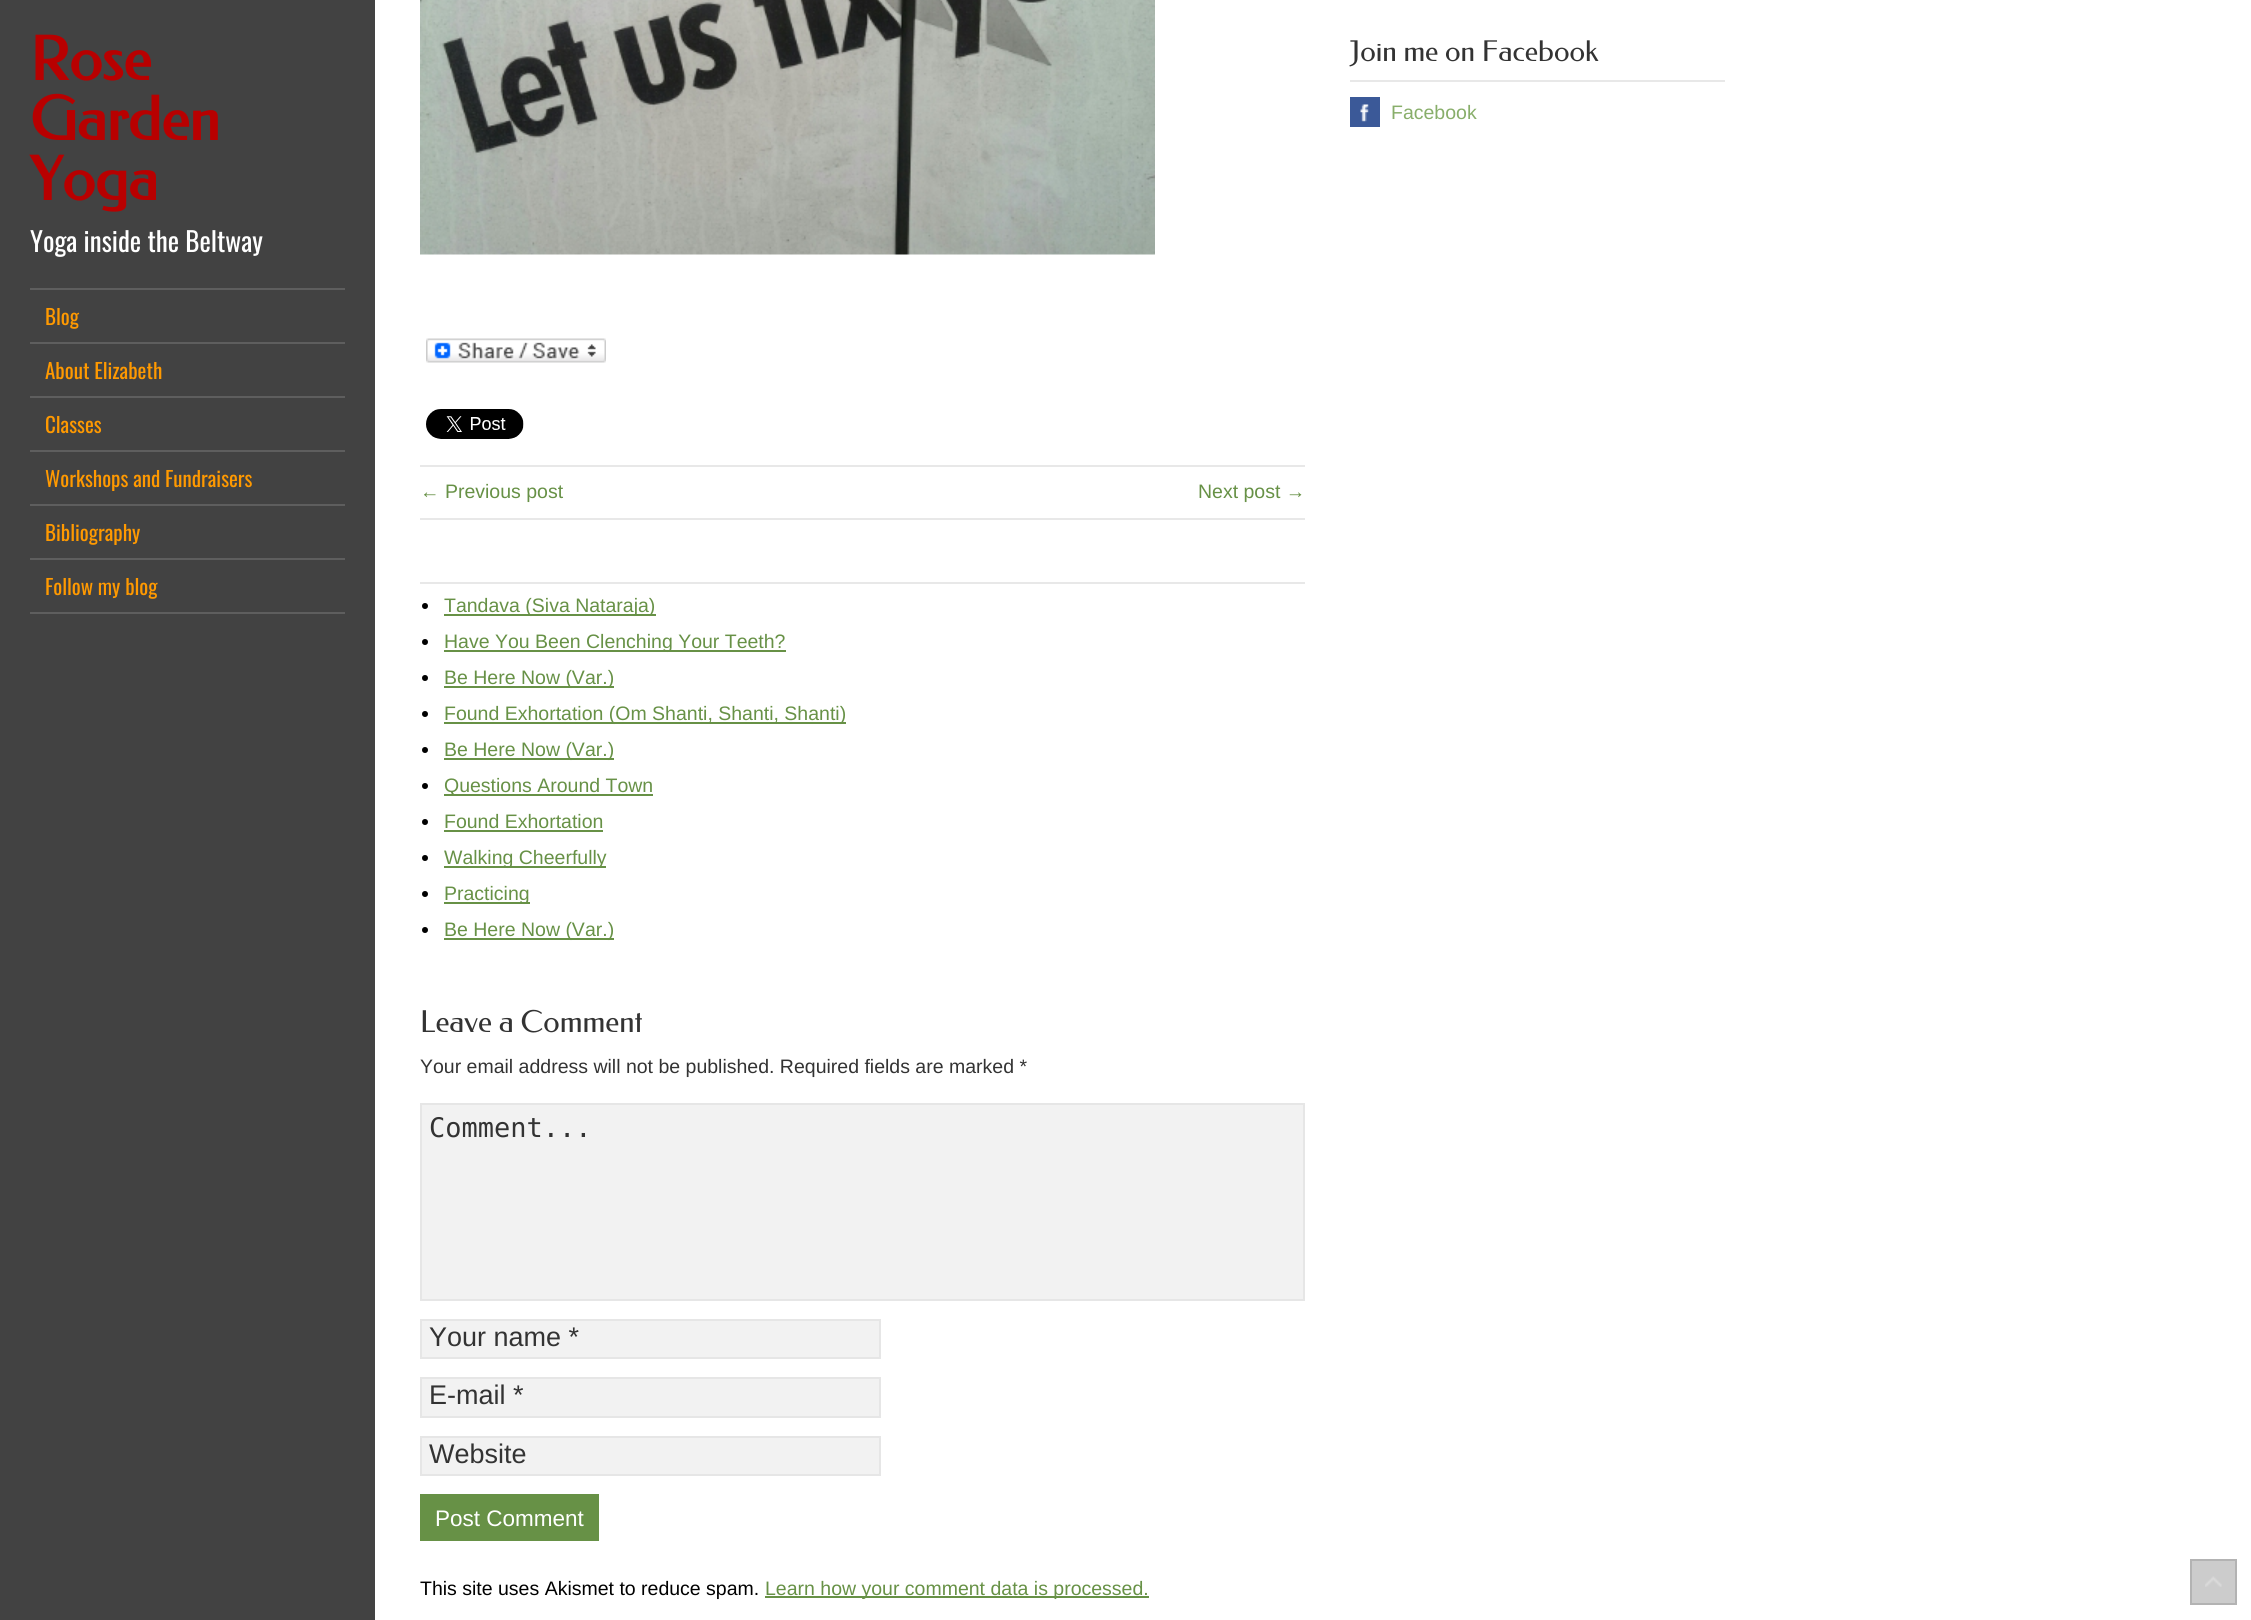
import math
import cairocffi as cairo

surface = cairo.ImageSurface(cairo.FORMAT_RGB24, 2251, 1620)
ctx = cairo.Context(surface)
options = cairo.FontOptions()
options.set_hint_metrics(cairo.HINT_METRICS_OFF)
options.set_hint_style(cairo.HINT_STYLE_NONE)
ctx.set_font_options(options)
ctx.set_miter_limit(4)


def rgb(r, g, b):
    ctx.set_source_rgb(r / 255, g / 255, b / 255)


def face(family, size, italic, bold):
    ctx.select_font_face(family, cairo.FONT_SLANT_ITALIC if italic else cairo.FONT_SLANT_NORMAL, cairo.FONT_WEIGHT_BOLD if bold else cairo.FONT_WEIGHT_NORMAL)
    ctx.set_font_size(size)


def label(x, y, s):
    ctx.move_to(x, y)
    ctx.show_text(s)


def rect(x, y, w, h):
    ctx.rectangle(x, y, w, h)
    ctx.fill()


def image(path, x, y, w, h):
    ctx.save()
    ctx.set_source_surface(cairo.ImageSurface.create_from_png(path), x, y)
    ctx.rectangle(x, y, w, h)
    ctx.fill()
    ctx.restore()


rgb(255, 255, 255)
ctx.paint()
rgb(66, 66, 66)
rect(0, 0, 375, 1620)
face('Federo', 60, 0, 1)
rgb(184, 0, 0)
label(30, 80, 'Rose')
label(30, 140, 'Garden')
label(30, 200, 'Yoga')
face('Oswald', 27, 0, 0)
rgb(255, 255, 255)
label(30, 252, 'Yoga inside the Beltway')
rgb(94, 94, 94)
rect(30, 288, 315, 2)
rect(30, 342, 315, 2)
face('Oswald', 21, 0, 0)
rgb(255, 153, 0)
label(45, 325, 'Blog')
rgb(94, 94, 94)
rect(30, 396, 315, 2)
rgb(255, 153, 0)
label(45, 379, 'About Elizabeth')
rgb(94, 94, 94)
rect(30, 450, 315, 2)
rgb(255, 153, 0)
label(45, 433, 'Classes')
rgb(94, 94, 94)
rect(30, 504, 315, 2)
rgb(255, 153, 0)
label(45, 487, 'Workshops and Fundraisers')
rgb(94, 94, 94)
rect(30, 558, 315, 2)
rgb(255, 153, 0)
label(45, 541, 'Bibliography')
rgb(94, 94, 94)
rect(30, 612, 315, 2)
rgb(255, 153, 0)
label(45, 595, 'Follow my blog')
rgb(232, 232, 232)
rect(1350, 80, 375, 2)
face('Federo', 28.5, 0, 0)
rgb(51, 51, 51)
label(1350, 61, 'Join me on Facebook')
image('image0.png', 1350, 97, 30, 30)
face('Liberation Sans', 19.5, 0, 0)
rgb(136, 174, 106)
label(1391, 119, 'Facebook')
image('image1.png', 420, 0, 735, 255)
image('image2.png', 426, 338, 180, 25)
image('image3.png', 426, 409, 98, 30)
rgb(232, 232, 232)
rect(420, 465, 885, 2)
rect(420, 518, 885, 2)
rgb(103, 145, 70)
label(420, 498, '← Previous post')
label(1198, 498, 'Next post →')
rgb(232, 232, 232)
rect(420, 582, 885, 2)
rgb(0, 0, 0)
ctx.new_path()
ctx.arc(425, 606, 3, 0, 2 * math.pi)
ctx.fill()
rgb(103, 145, 70)
rect(444, 614, 212, 2)
label(444, 612, 'Tandava (Siva Nataraja)')
rgb(0, 0, 0)
ctx.new_path()
ctx.arc(425, 642, 3, 0, 2 * math.pi)
ctx.fill()
rgb(103, 145, 70)
rect(444, 650, 342, 2)
label(444, 648, 'Have You Been Clenching Your Teeth?')
rgb(0, 0, 0)
ctx.new_path()
ctx.arc(425, 678, 3, 0, 2 * math.pi)
ctx.fill()
rgb(103, 145, 70)
rect(444, 686, 170, 2)
label(444, 684, 'Be Here Now (Var.)')
rgb(0, 0, 0)
ctx.new_path()
ctx.arc(425, 714, 3, 0, 2 * math.pi)
ctx.fill()
rgb(103, 145, 70)
rect(444, 722, 402, 2)
label(444, 720, 'Found Exhortation (Om Shanti, Shanti, Shanti)')
rgb(0, 0, 0)
ctx.new_path()
ctx.arc(425, 750, 3, 0, 2 * math.pi)
ctx.fill()
rgb(103, 145, 70)
rect(444, 758, 170, 2)
label(444, 756, 'Be Here Now (Var.)')
rgb(0, 0, 0)
ctx.new_path()
ctx.arc(425, 786, 3, 0, 2 * math.pi)
ctx.fill()
rgb(103, 145, 70)
rect(444, 794, 209, 2)
label(444, 792, 'Questions Around Town')
rgb(0, 0, 0)
ctx.new_path()
ctx.arc(425, 822, 3, 0, 2 * math.pi)
ctx.fill()
rgb(103, 145, 70)
label(444, 828, 'Found Exhortation')
rect(444, 830, 159, 2)
rgb(0, 0, 0)
ctx.new_path()
ctx.arc(425, 858, 3, 0, 2 * math.pi)
ctx.fill()
rgb(103, 145, 70)
rect(444, 866, 162, 2)
label(444, 864, 'Walking Cheerfully')
rgb(0, 0, 0)
ctx.new_path()
ctx.arc(425, 894, 3, 0, 2 * math.pi)
ctx.fill()
rgb(103, 145, 70)
rect(444, 902, 86, 2)
label(444, 900, 'Practicing')
rgb(0, 0, 0)
ctx.new_path()
ctx.arc(425, 930, 3, 0, 2 * math.pi)
ctx.fill()
rgb(103, 145, 70)
rect(444, 938, 170, 2)
label(444, 936, 'Be Here Now (Var.)')
face('Federo', 30, 0, 0)
rgb(51, 51, 51)
label(420, 1032, 'Leave a Comment')
face('Liberation Sans', 19.5, 0, 0)
label(420, 1073, 'Your email address will not be published. Required fields are marked *')
rgb(242, 242, 242)
ctx.rectangle(421, 1104, 883, 196)
ctx.fill_preserve()
rgb(230, 230, 230)
ctx.stroke()
face('DejaVu Sans Mono', 27, 0, 0)
rgb(51, 51, 51)
label(429, 1137, 'Comment...')
rgb(242, 242, 242)
ctx.rectangle(421, 1320, 459, 38)
ctx.fill_preserve()
rgb(230, 230, 230)
ctx.stroke()
face('Liberation Sans', 27, 0, 0)
rgb(51, 51, 51)
label(429, 1346, 'Your name *')
rgb(242, 242, 242)
ctx.rectangle(421, 1378, 459, 39)
ctx.fill_preserve()
rgb(230, 230, 230)
ctx.stroke()
rgb(51, 51, 51)
label(429, 1404, 'E-mail *')
rgb(242, 242, 242)
ctx.rectangle(421, 1437, 459, 38)
ctx.fill_preserve()
rgb(230, 230, 230)
ctx.stroke()
rgb(51, 51, 51)
label(429, 1463, 'Website')
rgb(103, 145, 70)
rect(420, 1494, 179, 47)
face('Liberation Sans', 22.5, 0, 0)
rgb(255, 255, 255)
label(435, 1526, 'Post Comment')
face('Liberation Sans', 19.5, 0, 0)
rgb(0, 0, 0)
label(420, 1595, 'This site uses Akismet to reduce spam.')
rgb(103, 145, 70)
rect(765, 1596, 384, 2)
label(765, 1595, 'Learn how your comment data is processed.')
rgb(204, 204, 204)
rect(2192, 1561, 43, 42)
image('image4.png', 2205, 1576, 17, 11)
ctx.rectangle(2191, 1560, 45, 44)
rgb(179, 179, 179)
ctx.stroke()
surface.write_to_png('render.png')
